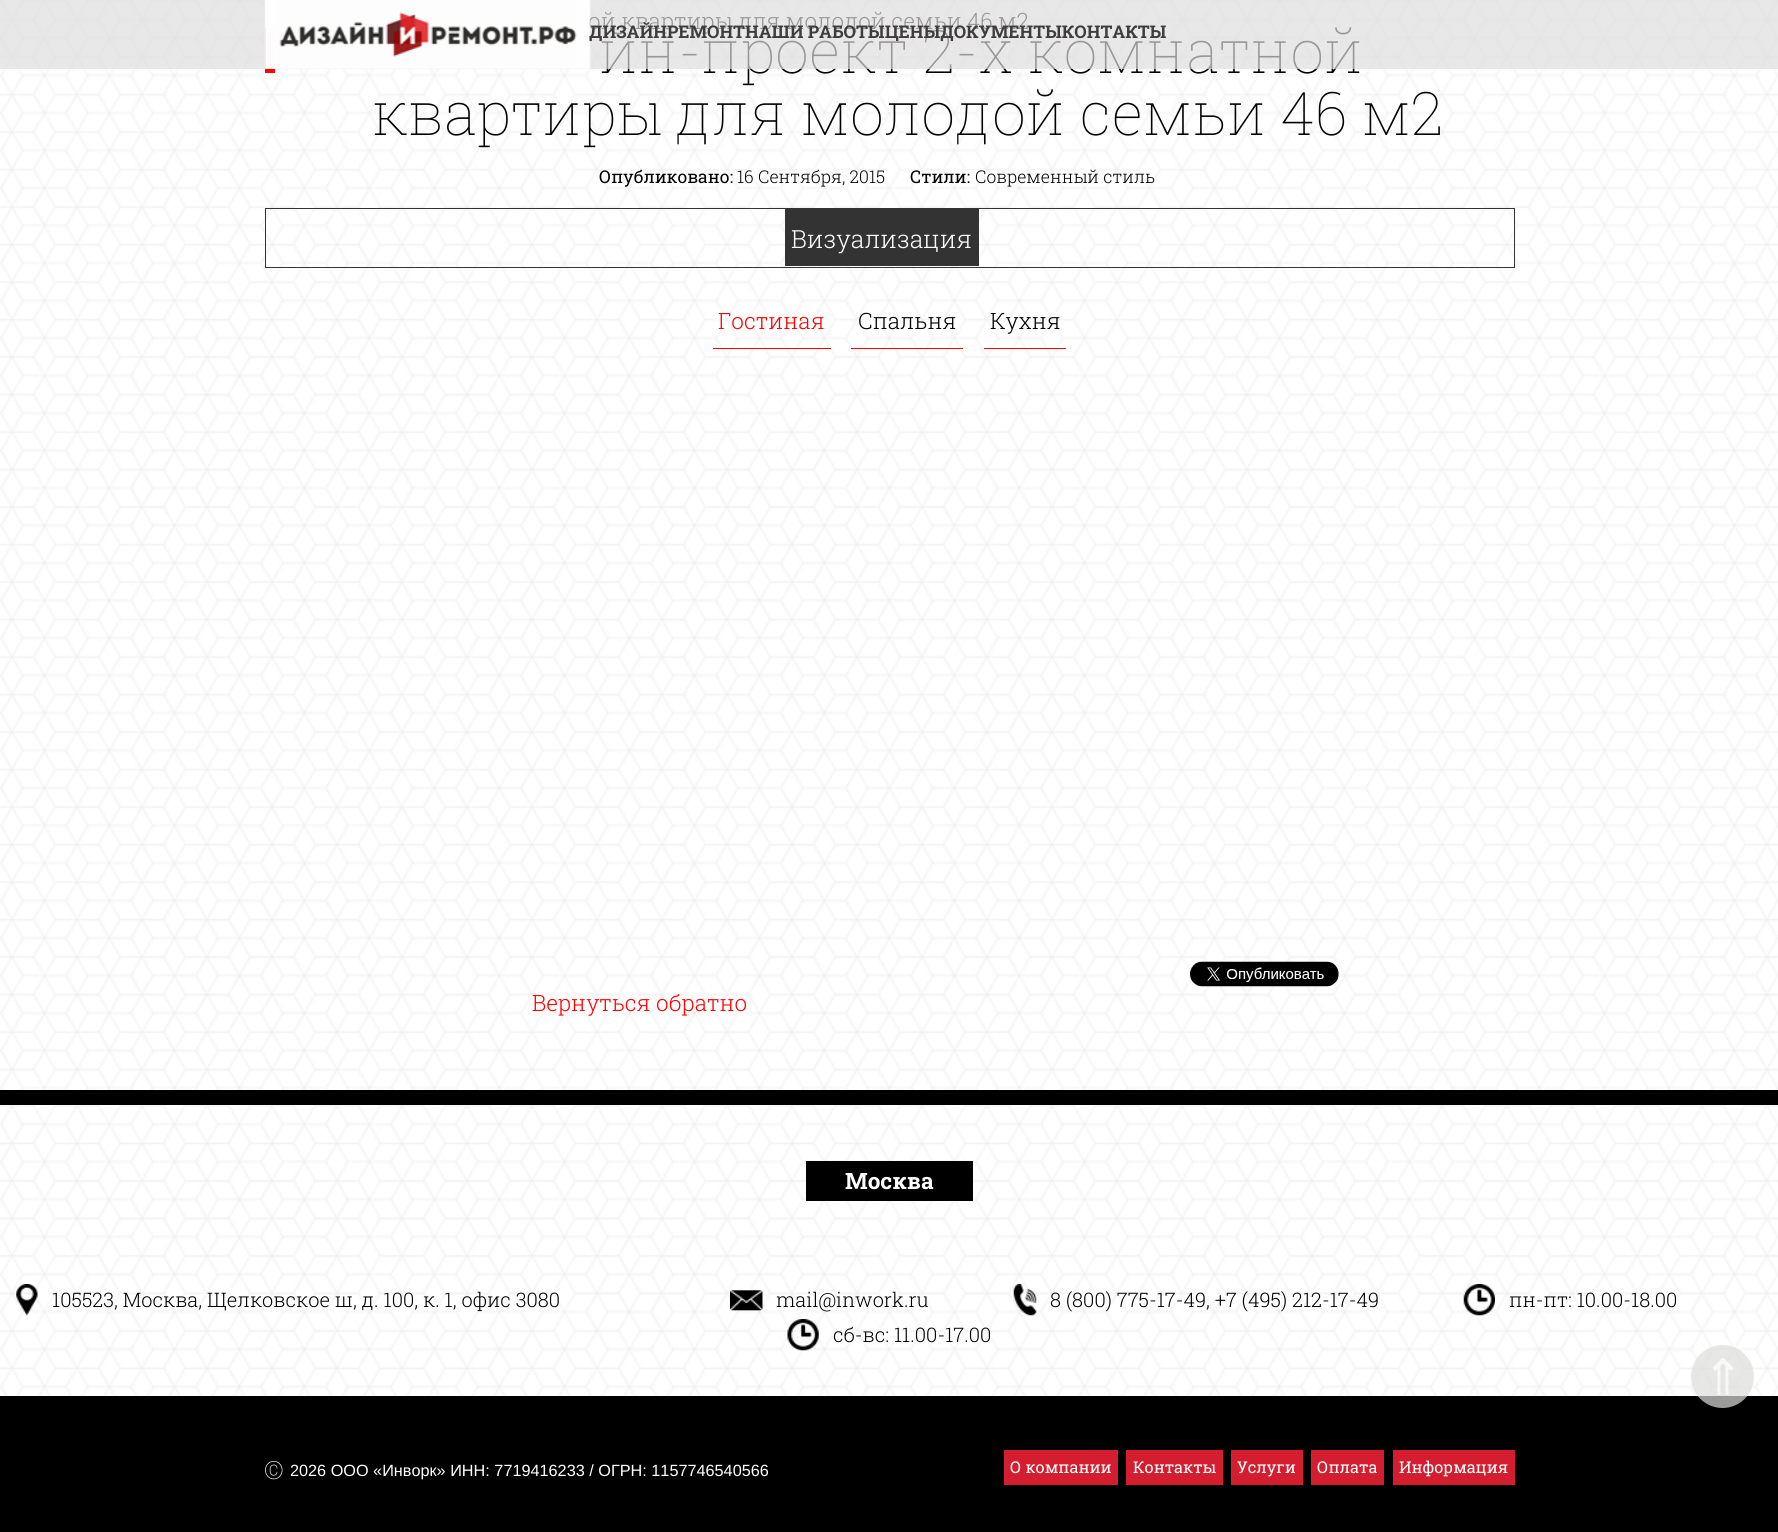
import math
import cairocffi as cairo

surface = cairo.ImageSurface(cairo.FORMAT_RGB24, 1778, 1532)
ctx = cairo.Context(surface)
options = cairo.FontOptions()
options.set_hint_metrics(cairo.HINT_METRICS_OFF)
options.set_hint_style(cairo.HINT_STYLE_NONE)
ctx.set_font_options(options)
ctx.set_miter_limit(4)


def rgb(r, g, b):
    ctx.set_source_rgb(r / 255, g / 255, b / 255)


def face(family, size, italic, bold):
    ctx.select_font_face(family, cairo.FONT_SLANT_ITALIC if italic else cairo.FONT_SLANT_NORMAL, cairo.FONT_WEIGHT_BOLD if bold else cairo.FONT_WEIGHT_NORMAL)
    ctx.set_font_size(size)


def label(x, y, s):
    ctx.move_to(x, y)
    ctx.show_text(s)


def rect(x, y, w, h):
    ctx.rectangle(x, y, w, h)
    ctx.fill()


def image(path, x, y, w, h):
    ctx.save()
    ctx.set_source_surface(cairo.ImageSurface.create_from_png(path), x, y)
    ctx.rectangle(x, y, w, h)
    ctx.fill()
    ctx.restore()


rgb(255, 255, 255)
ctx.paint()
image('image0.png', 0, 0, 1778, 1090)
face('Roboto Slab Light', 22.5, 0, 0)
rgb(0, 0, 0)
label(588, 29, 'ой квартиры для молодой семьи 46 м2')
rect(0, 1090, 1778, 15)
rgb(255, 0, 0)
rect(265, 28, 10, 45)
face('Roboto Slab Thin', 60, 0, 0)
rgb(0, 0, 0)
label(599, 73, 'йн-проект 2-х комнатной')
label(372, 135, 'квартиры для молодой семьи 46 м2')
face('Roboto Slab', 17.5, 0, 0)
label(599, 183, 'Опубликовано:')
face('Roboto Slab Light', 17.5, 0, 0)
label(737, 183, '16 Сентября, 2015')
face('Roboto Slab', 17.5, 0, 0)
label(910, 183, 'Стили:')
face('Roboto Slab Light', 17.5, 0, 0)
label(975, 183, 'Современный стиль')
ctx.rectangle(265.5, 208.5, 1249, 59)
rgb(51, 51, 51)
ctx.set_line_width(1)
ctx.stroke()
rect(785, 209, 194, 57)
face('Roboto Slab Light', 25, 0, 0)
rgb(255, 255, 255)
label(791, 248, 'Визуализация')
rgb(255, 0, 0)
rect(713, 348, 118, 1)
face('Roboto Slab Light', 22.5, 0, 0)
label(718, 329, 'Гостиная')
rect(851, 348, 112, 1)
rgb(0, 0, 0)
label(858, 329, 'Спальня')
rgb(255, 0, 0)
rect(984, 348, 82, 1)
rgb(0, 0, 0)
label(990, 329, 'Кухня')
image('image1.png', 1190, 961, 149, 26)
rgb(255, 0, 0)
label(532, 1011, 'Вернуться обратно')
image('image2.png', 0, 1105, 1778, 291)
rgb(0, 0, 0)
rect(806, 1161, 167, 40)
face('Roboto Slab', 22.5, 0, 1)
rgb(255, 255, 255)
label(845, 1189, 'Москва')
image('image3.png', 16, 1284, 22, 32)
face('Roboto Slab Light', 20, 0, 0)
rgb(0, 0, 0)
label(52, 1307, '105523, Москва, Щелковское ш, д. 100, к. 1, офис 3080')
image('image4.png', 730, 1290, 33, 21)
label(776, 1307, 'mail@inwork.ru')
image('image5.png', 1013, 1284, 24, 32)
label(1050, 1307, '8 (800) 775-17-49, +7 (495) 212-17-49')
image('image6.png', 1463, 1284, 32, 32)
label(1509, 1307, 'пн-пт: 10.00-18.00')
image('image7.png', 787, 1319, 32, 32)
label(833, 1342, 'сб-вс: 11.00-17.00')
ctx.set_source_rgba(0.867, 0.871, 0.863, 0.68)
rect(0, 0, 1778, 69)
image('image8.png', 264, 0, 327, 69)
face('Roboto Slab', 17.5, 0, 1)
rgb(62, 60, 60)
label(589, 38, 'ДИЗАЙНРЕМОНТНАШИ РАБОТЫЦЕНЫДОКУМЕНТЫКОНТАКТЫ')
rgb(0, 0, 0)
rect(0, 1396, 1778, 136)
ctx.set_source_rgba(0.867, 0.871, 0.863, 0.7)
ctx.new_path()
ctx.arc(1722.5, 1376.5, 31.5, 0, 2 * math.pi)
ctx.fill()
face('DejaVu Sans', 50, 0, 0)
rgb(248, 248, 247)
label(1702, 1395, '⇑')
face('Roboto Slab Thin', 25, 0, 0)
rgb(255, 255, 255)
label(264, 1479, '©')
face('Liberation Sans', 16.25, 0, 0)
label(290, 1476, '2026 ООО «Инворк» ИНН: 7719416233 / ОГРН: 1157746540566')
rgb(212, 30, 47)
rect(1004, 1450, 114, 35)
face('Roboto Slab', 16.25, 0, 0)
rgb(255, 255, 255)
label(1010, 1473, 'О компании')
rgb(212, 30, 47)
rect(1126, 1450, 97, 35)
rgb(255, 255, 255)
label(1133, 1473, 'Контакты')
rgb(212, 30, 47)
rect(1231, 1450, 72, 35)
rgb(255, 255, 255)
label(1237, 1473, 'Услуги')
rgb(212, 30, 47)
rect(1311, 1450, 73, 35)
rgb(255, 255, 255)
label(1317, 1473, 'Оплата')
rgb(212, 30, 47)
rect(1393, 1450, 122, 35)
rgb(255, 255, 255)
label(1399, 1473, 'Информация')
surface.write_to_png('render.png')
